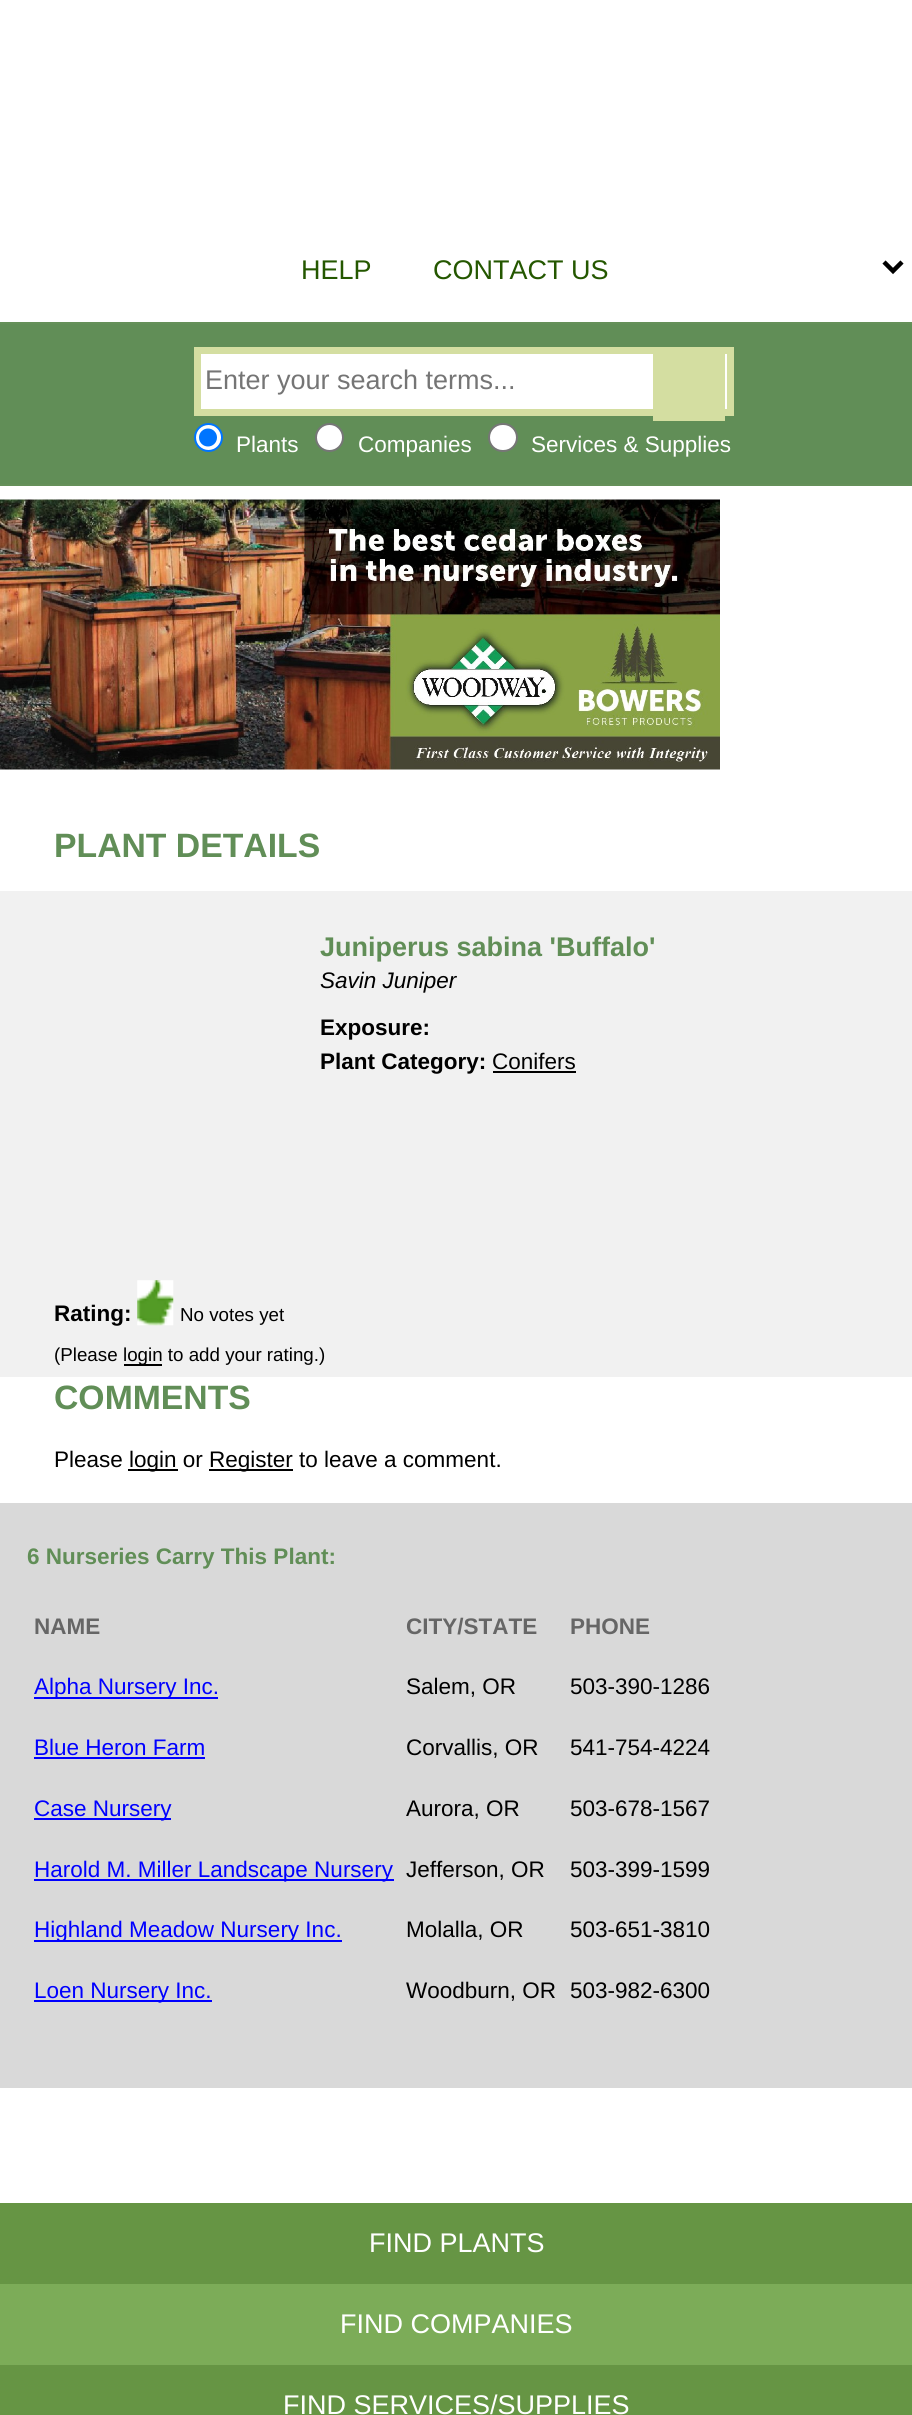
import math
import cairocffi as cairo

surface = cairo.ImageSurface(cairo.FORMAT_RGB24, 912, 2415)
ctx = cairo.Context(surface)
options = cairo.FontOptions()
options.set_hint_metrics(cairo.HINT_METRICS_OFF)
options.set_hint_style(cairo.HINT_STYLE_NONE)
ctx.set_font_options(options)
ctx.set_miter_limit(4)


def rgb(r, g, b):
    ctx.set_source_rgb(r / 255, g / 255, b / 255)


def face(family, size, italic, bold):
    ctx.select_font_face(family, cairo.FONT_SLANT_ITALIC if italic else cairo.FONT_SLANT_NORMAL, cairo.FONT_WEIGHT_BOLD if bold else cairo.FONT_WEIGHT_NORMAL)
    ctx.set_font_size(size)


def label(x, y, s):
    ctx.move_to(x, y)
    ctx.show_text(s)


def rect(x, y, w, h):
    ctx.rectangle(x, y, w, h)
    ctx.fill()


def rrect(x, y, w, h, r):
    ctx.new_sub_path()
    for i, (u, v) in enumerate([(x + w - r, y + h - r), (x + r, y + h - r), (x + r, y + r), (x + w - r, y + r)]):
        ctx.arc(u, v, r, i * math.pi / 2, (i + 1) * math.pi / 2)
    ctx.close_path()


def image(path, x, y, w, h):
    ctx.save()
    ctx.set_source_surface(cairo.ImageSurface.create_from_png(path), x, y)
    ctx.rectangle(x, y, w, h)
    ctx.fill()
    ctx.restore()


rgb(255, 255, 255)
ctx.paint()
face('Liberation Sans', 27, 0, 0)
rgb(36, 87, 0)
label(301, 279, 'HELP')
label(433, 279, 'CONTACT US')
ctx.new_path()
ctx.move_to(884, 262)
ctx.line_to(893, 271)
ctx.line_to(902, 262)
rgb(0, 0, 0)
ctx.set_line_width(4.5)
ctx.stroke()
rgb(97, 142, 87)
rect(0, 324, 912, 160)
rgb(101, 144, 89)
rect(0, 322, 912, 2)
rect(0, 484, 912, 2)
rgb(255, 255, 255)
ctx.rectangle(197.5, 350.5, 533, 62)
ctx.fill_preserve()
rgb(212, 222, 161)
ctx.set_line_width(7)
ctx.stroke()
rgb(117, 117, 117)
label(205, 389, 'Enter your search terms...')
rgb(212, 222, 161)
rect(653, 354, 72, 67)
rgb(255, 255, 255)
ctx.new_path()
ctx.arc(208.5, 437.5, 13.5, 0, 2 * math.pi)
ctx.fill_preserve()
rgb(0, 117, 255)
ctx.set_line_width(2)
ctx.stroke()
ctx.arc(208, 437.5, 9, 0, 2 * math.pi)
ctx.fill()
face('Liberation Sans', 22.5, 0, 0)
rgb(255, 255, 255)
label(236, 452, 'Plants')
ctx.new_path()
ctx.arc(329.5, 437.5, 13.5, 0, 2 * math.pi)
ctx.fill_preserve()
rgb(118, 118, 118)
ctx.stroke()
rgb(255, 255, 255)
label(358, 452, 'Companies')
rrect(489, 424, 28, 27, 13.5)
ctx.fill_preserve()
rgb(118, 118, 118)
ctx.stroke()
rgb(255, 255, 255)
label(531, 452, 'Services & Supplies')
face('Liberation Sans', 33.75, 0, 1)
rgb(97, 142, 87)
label(54, 857, 'PLANT DETAILS')
rgb(241, 241, 241)
rect(0, 891, 912, 486)
face('Liberation Sans', 27, 0, 1)
rgb(97, 142, 87)
label(320, 956, 'Juniperus sabina \'Buffalo\'')
face('Liberation Sans', 22.5, 1, 0)
rgb(0, 0, 0)
label(320, 988, 'Savin Juniper')
face('Liberation Sans', 22.5, 0, 1)
label(320, 1035, 'Exposure:')
label(320, 1069, 'Plant Category:')
face('Liberation Sans', 22.5, 0, 0)
label(492, 1069, 'Conifers')
rect(493, 1071, 83, 2)
face('Liberation Sans', 22.5, 0, 1)
label(54, 1321, 'Rating:')
image('image0.png', 137, 1280, 37, 46)
face('Liberation Sans', 18.75, 0, 0)
label(180, 1321, 'No votes yet')
label(54, 1361, '(Please')
rect(124, 1364, 38, 2)
label(123, 1361, 'login to add your rating.)')
face('Liberation Sans', 33.75, 0, 1)
rgb(97, 142, 87)
label(54, 1409, 'COMMENTS')
face('Liberation Sans', 22.5, 0, 0)
rgb(0, 0, 0)
label(54, 1467, 'Please')
rect(128, 1469, 50, 2)
label(129, 1467, 'login or')
rect(209, 1469, 84, 2)
label(209, 1467, 'Register to leave a comment.')
rgb(217, 217, 217)
rect(0, 1503, 912, 585)
face('Liberation Sans', 22.5, 0, 1)
rgb(97, 142, 87)
label(27, 1564, '6 Nurseries Carry This Plant:')
rgb(102, 102, 102)
label(34, 1634, 'NAME')
label(406, 1634, 'CITY/STATE')
label(570, 1634, 'PHONE')
rgb(0, 0, 255)
rect(34, 1697, 184, 2)
face('Liberation Sans', 22.5, 0, 0)
label(34, 1694, 'Alpha Nursery Inc.')
rgb(0, 0, 0)
label(406, 1694, 'Salem, OR')
label(570, 1694, '503-390-1286')
rgb(0, 0, 255)
label(34, 1755, 'Blue Heron Farm')
rect(34, 1757, 171, 2)
rgb(0, 0, 0)
label(406, 1755, 'Corvallis, OR')
label(570, 1755, '541-754-4224')
rgb(0, 0, 255)
rect(34, 1818, 137, 2)
label(34, 1816, 'Case Nursery')
rgb(0, 0, 0)
label(406, 1816, 'Aurora, OR')
label(570, 1816, '503-678-1567')
rgb(0, 0, 255)
rect(34, 1879, 360, 2)
label(34, 1877, 'Harold M. Miller Landscape Nursery')
rgb(0, 0, 0)
label(406, 1877, 'Jefferson, OR')
label(570, 1877, '503-399-1599')
rgb(0, 0, 255)
rect(34, 1940, 308, 2)
label(34, 1937, 'Highland Meadow Nursery Inc.')
rgb(0, 0, 0)
label(406, 1937, 'Molalla, OR')
label(570, 1937, '503-651-3810')
rgb(0, 0, 255)
rect(34, 2000, 178, 2)
label(34, 1998, 'Loen Nursery Inc.')
rgb(0, 0, 0)
label(406, 1998, 'Woodburn, OR')
label(570, 1998, '503-982-6300')
image('image1.png', 0, 499, 720, 271)
rgb(102, 149, 68)
rect(0, 2203, 912, 81)
face('Liberation Sans', 27, 0, 0)
rgb(255, 255, 255)
label(369, 2252, 'FIND PLANTS')
rgb(124, 172, 88)
rect(0, 2284, 912, 81)
rgb(255, 255, 255)
label(340, 2333, 'FIND COMPANIES')
rgb(102, 149, 68)
rect(0, 2365, 912, 50)
rgb(255, 255, 255)
label(283, 2414, 'FIND SERVICES/SUPPLIES')
surface.write_to_png('render.png')
